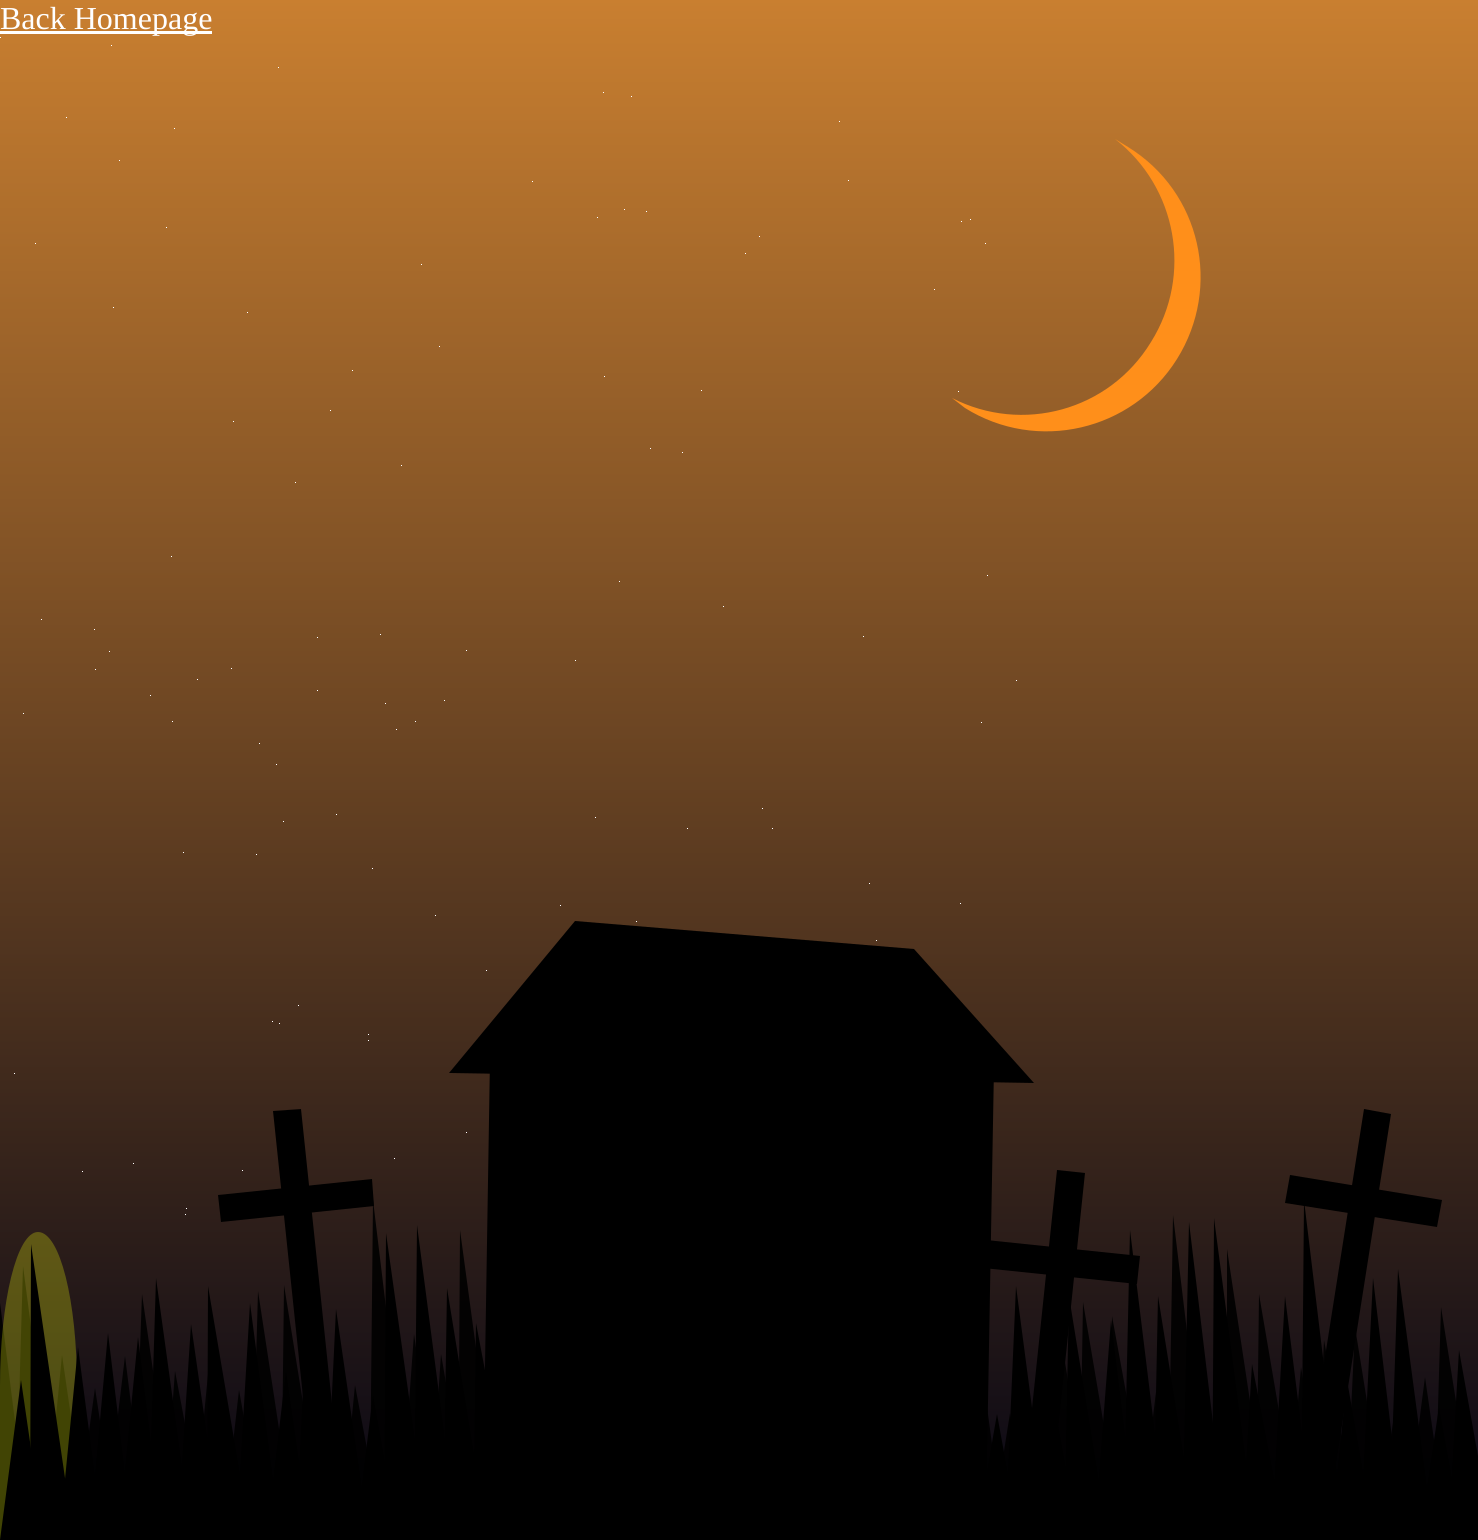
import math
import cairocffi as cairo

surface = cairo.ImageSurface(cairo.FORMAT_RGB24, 1478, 1540)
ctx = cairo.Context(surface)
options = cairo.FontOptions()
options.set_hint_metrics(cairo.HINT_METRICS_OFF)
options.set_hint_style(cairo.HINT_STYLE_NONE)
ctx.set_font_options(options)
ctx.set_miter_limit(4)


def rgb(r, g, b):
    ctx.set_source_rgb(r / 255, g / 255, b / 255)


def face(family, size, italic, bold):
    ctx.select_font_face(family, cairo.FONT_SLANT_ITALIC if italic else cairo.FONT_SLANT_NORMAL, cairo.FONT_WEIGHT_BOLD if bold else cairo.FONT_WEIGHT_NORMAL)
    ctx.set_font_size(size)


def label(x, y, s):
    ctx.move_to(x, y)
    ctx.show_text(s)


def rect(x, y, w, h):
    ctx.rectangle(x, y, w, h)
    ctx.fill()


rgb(255, 255, 255)
ctx.paint()
gradient = cairo.LinearGradient(739, 1540, 739, 0)
gradient.add_color_stop_rgba(0, 0.02, 0.02, 0.078, 1)
gradient.add_color_stop_rgba(1, 0.788, 0.498, 0.188, 1)
ctx.set_source(gradient)
rect(0, 0, 1478, 1540)
rgb(255, 255, 255)
rect(0, 31, 212, 3)
face('Liberation Serif', 32, 0, 0)
label(0, 29, 'Back Homepage')
rect(124, 22, 1, 1)
rect(0, 37, 1, 1)
rect(111, 45, 1, 1)
rect(278, 67, 1, 1)
rect(603, 92, 1, 1)
rect(631, 96, 1, 1)
rect(66, 117, 1, 1)
rect(839, 121, 1, 1)
rect(174, 128, 1, 1)
rect(119, 160, 1, 1)
rect(970, 219, 1, 1)
rect(961, 221, 1, 1)
rect(985, 243, 1, 1)
rect(958, 391, 1, 1)
rgb(255, 143, 26)
ctx.new_path()
ctx.move_to(1128, 147)
ctx.line_to(1115, 139)
ctx.curve_to(1177, 187, 1193, 275, 1151, 342)
ctx.curve_to(1109, 411, 1022, 434, 952, 398)
ctx.line_to(965, 408)
ctx.curve_to(1037, 453, 1132, 431, 1177, 359)
ctx.curve_to(1222, 287, 1201, 192, 1128, 147)
ctx.close_path()
ctx.fill()
rgb(255, 255, 255)
rect(848, 180, 1, 1)
rect(532, 181, 1, 1)
rect(624, 209, 1, 1)
rect(646, 211, 1, 1)
rect(597, 217, 1, 1)
rect(166, 227, 1, 1)
rect(759, 236, 1, 1)
rect(35, 243, 1, 1)
rect(745, 253, 1, 1)
rect(421, 264, 1, 1)
rect(934, 289, 1, 1)
rect(113, 307, 1, 1)
rect(247, 312, 1, 1)
rect(439, 346, 1, 1)
rect(352, 370, 1, 1)
rect(604, 376, 1, 1)
rect(701, 390, 1, 1)
rect(330, 410, 1, 1)
rect(233, 421, 1, 1)
rect(650, 448, 1, 1)
rect(682, 452, 1, 1)
rect(401, 465, 1, 1)
rect(295, 482, 1, 1)
rect(171, 556, 1, 1)
rect(987, 575, 1, 1)
rect(619, 581, 1, 1)
rect(723, 606, 1, 1)
rect(41, 619, 1, 1)
rect(94, 629, 1, 1)
rect(380, 634, 1, 1)
rect(863, 636, 1, 1)
rect(317, 637, 1, 1)
rect(466, 650, 1, 1)
rect(109, 651, 1, 1)
rect(575, 660, 1, 1)
rect(231, 668, 1, 1)
rect(95, 669, 1, 1)
rect(197, 679, 1, 1)
rect(1016, 680, 1, 1)
rect(317, 690, 1, 1)
rect(150, 695, 1, 1)
rect(444, 700, 1, 1)
rect(385, 703, 1, 1)
rect(23, 713, 1, 1)
rect(172, 721, 1, 1)
rect(415, 721, 1, 1)
rect(981, 722, 1, 1)
rect(396, 729, 1, 1)
rect(259, 743, 1, 1)
rect(276, 764, 1, 1)
rect(762, 808, 1, 1)
rect(336, 814, 1, 1)
rect(595, 817, 1, 1)
rect(283, 821, 1, 1)
rect(687, 828, 1, 1)
rect(772, 828, 1, 1)
rect(183, 852, 1, 1)
rect(256, 854, 1, 1)
rect(372, 868, 1, 1)
rect(869, 883, 1, 1)
rect(960, 903, 1, 1)
rect(560, 905, 1, 1)
rect(435, 915, 1, 1)
ctx.set_source_rgba(0, 0, 0, 0.9)
ctx.new_path()
ctx.move_to(355, 1385)
ctx.line_to(340, 1540)
ctx.line_to(384, 1540)
ctx.line_to(384, 1539)
ctx.close_path()
ctx.fill()
ctx.new_path()
ctx.move_to(373, 1200)
ctx.line_to(370, 1492)
ctx.line_to(370, 1540)
ctx.line_to(414, 1540)
ctx.close_path()
ctx.fill()
ctx.new_path()
ctx.move_to(414, 1334)
ctx.line_to(399, 1540)
ctx.line_to(443, 1540)
ctx.line_to(443, 1537)
ctx.close_path()
ctx.fill()
ctx.new_path()
ctx.move_to(441, 1354)
ctx.line_to(429, 1534)
ctx.line_to(429, 1540)
ctx.line_to(473, 1540)
ctx.close_path()
ctx.fill()
ctx.new_path()
ctx.move_to(460, 1230)
ctx.line_to(458, 1540)
ctx.line_to(502, 1540)
ctx.close_path()
ctx.fill()
ctx.new_path()
ctx.move_to(970, 1281)
ctx.line_to(961, 1540)
ctx.line_to(1005, 1540)
ctx.close_path()
ctx.fill()
ctx.new_path()
ctx.move_to(1010, 1413)
ctx.line_to(990, 1540)
ctx.line_to(1035, 1540)
ctx.close_path()
ctx.fill()
rgb(0, 0, 0)
ctx.new_path()
ctx.move_to(490, 1058)
ctx.line_to(994, 1067)
ctx.line_to(983, 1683)
ctx.line_to(480, 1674)
ctx.close_path()
ctx.fill()
rgb(255, 255, 255)
rect(636, 921, 1, 1)
rect(876, 940, 1, 1)
rect(486, 970, 1, 1)
rgb(0, 0, 0)
ctx.new_path()
ctx.move_to(1034, 1083)
ctx.line_to(449, 1073)
ctx.line_to(575, 921)
ctx.line_to(914, 949)
ctx.close_path()
ctx.fill()
rgb(255, 255, 255)
rect(298, 1005, 1, 1)
rect(272, 1021, 1, 1)
rect(279, 1023, 1, 1)
rect(368, 1034, 1, 1)
rect(368, 1040, 1, 1)
rect(14, 1073, 1, 1)
ctx.set_source_rgba(0, 0, 0, 0.9)
ctx.new_path()
ctx.move_to(-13, 1200)
ctx.line_to(-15, 1540)
ctx.line_to(30, 1540)
ctx.close_path()
ctx.fill()
ctx.new_path()
ctx.move_to(23, 1266)
ctx.line_to(15, 1540)
ctx.line_to(59, 1540)
ctx.line_to(59, 1539)
ctx.close_path()
ctx.fill()
ctx.new_path()
ctx.move_to(62, 1355)
ctx.line_to(44, 1540)
ctx.line_to(89, 1540)
ctx.close_path()
ctx.fill()
ctx.new_path()
ctx.move_to(95, 1388)
ctx.line_to(74, 1540)
ctx.line_to(118, 1540)
ctx.line_to(118, 1539)
ctx.close_path()
ctx.fill()
ctx.new_path()
ctx.move_to(125, 1356)
ctx.line_to(103, 1540)
ctx.line_to(148, 1540)
ctx.close_path()
ctx.fill()
ctx.new_path()
ctx.move_to(142, 1294)
ctx.line_to(133, 1540)
ctx.line_to(177, 1540)
ctx.line_to(177, 1538)
ctx.close_path()
ctx.fill()
ctx.new_path()
ctx.move_to(175, 1371)
ctx.line_to(163, 1534)
ctx.line_to(163, 1540)
ctx.line_to(207, 1540)
ctx.close_path()
ctx.fill()
ctx.new_path()
ctx.move_to(211, 1343)
ctx.line_to(192, 1540)
ctx.line_to(236, 1540)
ctx.line_to(236, 1537)
ctx.close_path()
ctx.fill()
ctx.new_path()
ctx.move_to(239, 1390)
ctx.line_to(222, 1540)
ctx.line_to(266, 1540)
ctx.close_path()
ctx.fill()
ctx.new_path()
ctx.move_to(258, 1291)
ctx.line_to(251, 1540)
ctx.line_to(296, 1540)
ctx.close_path()
ctx.fill()
ctx.new_path()
ctx.move_to(284, 1285)
ctx.line_to(281, 1540)
ctx.line_to(325, 1540)
ctx.line_to(325, 1539)
ctx.close_path()
ctx.fill()
rgb(0, 0, 0)
ctx.new_path()
ctx.move_to(273, 1111)
ctx.line_to(301, 1109)
ctx.line_to(346, 1537)
ctx.line_to(318, 1540)
ctx.close_path()
ctx.fill()
ctx.new_path()
ctx.move_to(218, 1195)
ctx.line_to(372, 1179)
ctx.line_to(374, 1206)
ctx.line_to(221, 1222)
ctx.close_path()
ctx.fill()
ctx.set_source_rgba(0, 0, 0, 0.9)
ctx.new_path()
ctx.move_to(1056, 1307)
ctx.line_to(1049, 1540)
ctx.line_to(1094, 1540)
ctx.close_path()
ctx.fill()
ctx.new_path()
ctx.move_to(1083, 1302)
ctx.line_to(1079, 1540)
ctx.line_to(1123, 1540)
ctx.line_to(1123, 1538)
ctx.close_path()
ctx.fill()
rgb(0, 0, 0)
ctx.new_path()
ctx.move_to(1057, 1170)
ctx.line_to(1085, 1173)
ctx.line_to(1040, 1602)
ctx.line_to(1012, 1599)
ctx.close_path()
ctx.fill()
ctx.new_path()
ctx.move_to(986, 1240)
ctx.line_to(1140, 1256)
ctx.line_to(1137, 1284)
ctx.line_to(983, 1268)
ctx.close_path()
ctx.fill()
ctx.set_source_rgba(0, 0, 0, 0.9)
ctx.new_path()
ctx.move_to(1227, 1540)
ctx.line_to(1271, 1540)
ctx.line_to(1227, 1249)
ctx.close_path()
ctx.fill()
ctx.new_path()
ctx.move_to(1259, 1294)
ctx.line_to(1256, 1540)
ctx.line_to(1301, 1540)
ctx.close_path()
ctx.fill()
ctx.new_path()
ctx.move_to(1301, 1367)
ctx.line_to(1286, 1540)
ctx.line_to(1330, 1540)
ctx.line_to(1330, 1539)
ctx.close_path()
ctx.fill()
ctx.new_path()
ctx.move_to(1324, 1340)
ctx.line_to(1315, 1540)
ctx.line_to(1360, 1540)
ctx.close_path()
ctx.fill()
ctx.new_path()
ctx.move_to(1355, 1327)
ctx.line_to(1345, 1540)
ctx.line_to(1389, 1540)
ctx.line_to(1389, 1538)
ctx.close_path()
ctx.fill()
ctx.new_path()
ctx.move_to(1396, 1404)
ctx.line_to(1375, 1537)
ctx.line_to(1375, 1540)
ctx.line_to(1419, 1540)
ctx.close_path()
ctx.fill()
rgb(0, 0, 0)
ctx.new_path()
ctx.move_to(1364, 1109)
ctx.line_to(1391, 1114)
ctx.line_to(1324, 1540)
ctx.line_to(1297, 1535)
ctx.close_path()
ctx.fill()
ctx.new_path()
ctx.move_to(1290, 1175)
ctx.line_to(1442, 1200)
ctx.line_to(1437, 1227)
ctx.line_to(1285, 1203)
ctx.close_path()
ctx.fill()
rgb(255, 255, 255)
rect(466, 1132, 1, 1)
rect(394, 1158, 1, 1)
rect(133, 1163, 1, 1)
rect(242, 1170, 1, 1)
rect(82, 1171, 1, 1)
ctx.set_source_rgba(0, 0, 0, 0.9)
ctx.new_path()
ctx.move_to(1112, 1316)
ctx.line_to(1109, 1512)
ctx.line_to(1109, 1540)
ctx.line_to(1153, 1540)
ctx.close_path()
ctx.fill()
ctx.new_path()
ctx.move_to(1156, 1392)
ctx.line_to(1138, 1540)
ctx.line_to(1182, 1540)
ctx.line_to(1182, 1538)
ctx.close_path()
ctx.fill()
ctx.new_path()
ctx.move_to(1173, 1215)
ctx.line_to(1168, 1516)
ctx.line_to(1168, 1540)
ctx.line_to(1212, 1540)
ctx.close_path()
ctx.fill()
rgb(0, 0, 0)
ctx.new_path()
ctx.move_to(997, 1414)
ctx.line_to(975, 1540)
ctx.line_to(1020, 1540)
ctx.close_path()
ctx.fill()
ctx.new_path()
ctx.move_to(1016, 1286)
ctx.line_to(1005, 1540)
ctx.line_to(1049, 1540)
ctx.line_to(1049, 1537)
ctx.close_path()
ctx.fill()
ctx.new_path()
ctx.move_to(1041, 1331)
ctx.line_to(1035, 1527)
ctx.line_to(1035, 1540)
ctx.line_to(1079, 1540)
ctx.close_path()
ctx.fill()
ctx.new_path()
ctx.move_to(1069, 1296)
ctx.line_to(1064, 1540)
ctx.line_to(1108, 1540)
ctx.line_to(1108, 1537)
ctx.close_path()
ctx.fill()
ctx.new_path()
ctx.move_to(1111, 1320)
ctx.line_to(1094, 1540)
ctx.line_to(1138, 1540)
ctx.close_path()
ctx.fill()
ctx.new_path()
ctx.move_to(1130, 1230)
ctx.line_to(1123, 1540)
ctx.line_to(1168, 1540)
ctx.close_path()
ctx.fill()
ctx.new_path()
ctx.move_to(1158, 1296)
ctx.line_to(1153, 1540)
ctx.line_to(1197, 1540)
ctx.line_to(1197, 1539)
ctx.close_path()
ctx.fill()
ctx.new_path()
ctx.move_to(1189, 1222)
ctx.line_to(1182, 1540)
ctx.line_to(1227, 1540)
ctx.close_path()
ctx.fill()
ctx.new_path()
ctx.move_to(1214, 1218)
ctx.line_to(1212, 1540)
ctx.line_to(1256, 1540)
ctx.line_to(1256, 1538)
ctx.close_path()
ctx.fill()
ctx.new_path()
ctx.move_to(1252, 1364)
ctx.line_to(1242, 1532)
ctx.line_to(1242, 1540)
ctx.line_to(1286, 1540)
ctx.close_path()
ctx.fill()
ctx.new_path()
ctx.move_to(1285, 1296)
ctx.line_to(1271, 1540)
ctx.line_to(1315, 1540)
ctx.line_to(1315, 1537)
ctx.close_path()
ctx.fill()
ctx.new_path()
ctx.move_to(1304, 1200)
ctx.line_to(1301, 1540)
ctx.line_to(1345, 1540)
ctx.close_path()
ctx.fill()
ctx.set_source_rgba(0.906, 0.937, 0.055, 0.28)
ctx.new_path()
ctx.move_to(38, 1232)
ctx.curve_to(60, 1232, 77, 1301, 77, 1386)
ctx.line_to(77, 1540)
ctx.line_to(0, 1540)
ctx.line_to(0, 1386)
ctx.curve_to(0, 1301, 17, 1232, 38, 1232)
ctx.close_path()
ctx.fill()
rgb(0, 0, 0)
ctx.new_path()
ctx.move_to(21, 1380)
ctx.line_to(0, 1540)
ctx.line_to(44, 1540)
ctx.line_to(44, 1538)
ctx.close_path()
ctx.fill()
ctx.new_path()
ctx.move_to(31, 1244)
ctx.line_to(30, 1540)
ctx.line_to(74, 1540)
ctx.close_path()
ctx.fill()
ctx.new_path()
ctx.move_to(78, 1347)
ctx.line_to(59, 1540)
ctx.line_to(103, 1540)
ctx.line_to(103, 1537)
ctx.close_path()
ctx.fill()
ctx.new_path()
ctx.move_to(108, 1333)
ctx.line_to(89, 1540)
ctx.line_to(133, 1540)
ctx.close_path()
ctx.fill()
ctx.new_path()
ctx.move_to(138, 1337)
ctx.line_to(118, 1540)
ctx.line_to(163, 1540)
ctx.close_path()
ctx.fill()
ctx.new_path()
ctx.move_to(156, 1278)
ctx.line_to(148, 1540)
ctx.line_to(192, 1540)
ctx.line_to(192, 1539)
ctx.close_path()
ctx.fill()
ctx.new_path()
ctx.move_to(191, 1324)
ctx.line_to(177, 1540)
ctx.line_to(222, 1540)
ctx.close_path()
ctx.fill()
ctx.new_path()
ctx.move_to(208, 1286)
ctx.line_to(207, 1540)
ctx.line_to(251, 1540)
ctx.line_to(251, 1539)
ctx.close_path()
ctx.fill()
ctx.new_path()
ctx.move_to(250, 1303)
ctx.line_to(236, 1540)
ctx.line_to(281, 1540)
ctx.close_path()
ctx.fill()
ctx.new_path()
ctx.move_to(286, 1371)
ctx.line_to(266, 1540)
ctx.line_to(310, 1540)
ctx.line_to(310, 1538)
ctx.close_path()
ctx.fill()
ctx.new_path()
ctx.move_to(305, 1348)
ctx.line_to(296, 1532)
ctx.line_to(296, 1540)
ctx.line_to(340, 1540)
ctx.close_path()
ctx.fill()
ctx.new_path()
ctx.move_to(336, 1309)
ctx.line_to(325, 1540)
ctx.line_to(369, 1540)
ctx.line_to(369, 1537)
ctx.close_path()
ctx.fill()
ctx.new_path()
ctx.move_to(373, 1395)
ctx.line_to(355, 1540)
ctx.line_to(399, 1540)
ctx.close_path()
ctx.fill()
ctx.new_path()
ctx.move_to(386, 1233)
ctx.line_to(384, 1540)
ctx.line_to(429, 1540)
ctx.close_path()
ctx.fill()
ctx.new_path()
ctx.move_to(417, 1225)
ctx.line_to(414, 1540)
ctx.line_to(458, 1540)
ctx.line_to(458, 1539)
ctx.close_path()
ctx.fill()
ctx.new_path()
ctx.move_to(447, 1288)
ctx.line_to(443, 1540)
ctx.line_to(488, 1540)
ctx.close_path()
ctx.fill()
ctx.new_path()
ctx.move_to(1347, 1380)
ctx.line_to(1330, 1540)
ctx.line_to(1375, 1540)
ctx.close_path()
ctx.fill()
ctx.new_path()
ctx.move_to(1373, 1278)
ctx.line_to(1360, 1540)
ctx.line_to(1404, 1540)
ctx.line_to(1404, 1539)
ctx.close_path()
ctx.fill()
ctx.set_source_rgba(0, 0, 0, 0.9)
ctx.new_path()
ctx.move_to(1425, 1377)
ctx.line_to(1404, 1540)
ctx.line_to(1448, 1540)
ctx.line_to(1448, 1537)
ctx.close_path()
ctx.fill()
rgb(0, 0, 0)
ctx.new_path()
ctx.move_to(1398, 1269)
ctx.line_to(1389, 1540)
ctx.line_to(1434, 1540)
ctx.close_path()
ctx.fill()
ctx.set_source_rgba(0, 0, 0, 0.9)
ctx.new_path()
ctx.move_to(1441, 1307)
ctx.line_to(1434, 1540)
ctx.line_to(1478, 1540)
ctx.close_path()
ctx.fill()
rgb(0, 0, 0)
ctx.new_path()
ctx.move_to(476, 1323)
ctx.line_to(473, 1540)
ctx.line_to(517, 1540)
ctx.line_to(517, 1539)
ctx.close_path()
ctx.fill()
ctx.new_path()
ctx.move_to(1439, 1407)
ctx.line_to(1419, 1540)
ctx.line_to(1463, 1540)
ctx.line_to(1463, 1539)
ctx.close_path()
ctx.fill()
ctx.new_path()
ctx.move_to(1459, 1350)
ctx.line_to(1448, 1540)
ctx.line_to(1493, 1540)
ctx.close_path()
ctx.fill()
rgb(255, 255, 255)
rect(186, 1208, 1, 1)
rect(185, 1214, 1, 1)
surface.write_to_png('render.png')
